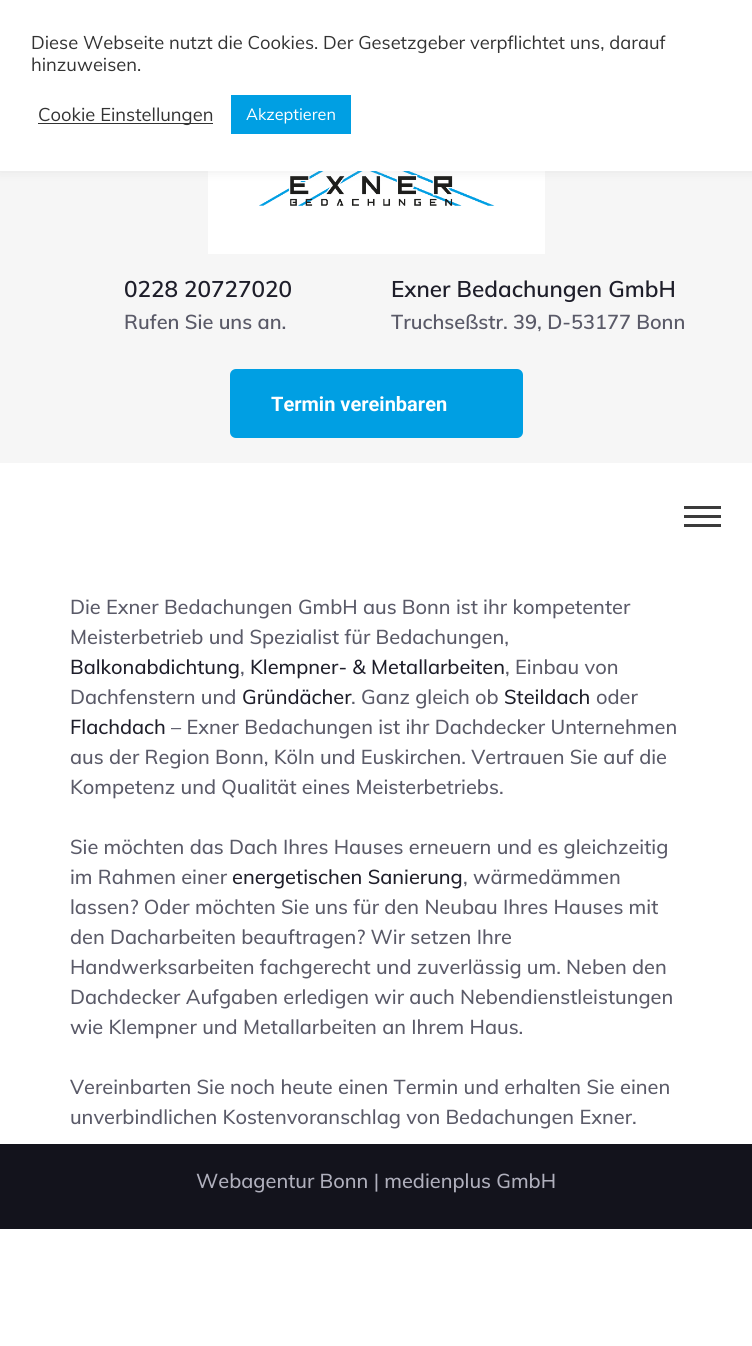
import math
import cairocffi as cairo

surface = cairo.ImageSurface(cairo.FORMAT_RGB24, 752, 1346)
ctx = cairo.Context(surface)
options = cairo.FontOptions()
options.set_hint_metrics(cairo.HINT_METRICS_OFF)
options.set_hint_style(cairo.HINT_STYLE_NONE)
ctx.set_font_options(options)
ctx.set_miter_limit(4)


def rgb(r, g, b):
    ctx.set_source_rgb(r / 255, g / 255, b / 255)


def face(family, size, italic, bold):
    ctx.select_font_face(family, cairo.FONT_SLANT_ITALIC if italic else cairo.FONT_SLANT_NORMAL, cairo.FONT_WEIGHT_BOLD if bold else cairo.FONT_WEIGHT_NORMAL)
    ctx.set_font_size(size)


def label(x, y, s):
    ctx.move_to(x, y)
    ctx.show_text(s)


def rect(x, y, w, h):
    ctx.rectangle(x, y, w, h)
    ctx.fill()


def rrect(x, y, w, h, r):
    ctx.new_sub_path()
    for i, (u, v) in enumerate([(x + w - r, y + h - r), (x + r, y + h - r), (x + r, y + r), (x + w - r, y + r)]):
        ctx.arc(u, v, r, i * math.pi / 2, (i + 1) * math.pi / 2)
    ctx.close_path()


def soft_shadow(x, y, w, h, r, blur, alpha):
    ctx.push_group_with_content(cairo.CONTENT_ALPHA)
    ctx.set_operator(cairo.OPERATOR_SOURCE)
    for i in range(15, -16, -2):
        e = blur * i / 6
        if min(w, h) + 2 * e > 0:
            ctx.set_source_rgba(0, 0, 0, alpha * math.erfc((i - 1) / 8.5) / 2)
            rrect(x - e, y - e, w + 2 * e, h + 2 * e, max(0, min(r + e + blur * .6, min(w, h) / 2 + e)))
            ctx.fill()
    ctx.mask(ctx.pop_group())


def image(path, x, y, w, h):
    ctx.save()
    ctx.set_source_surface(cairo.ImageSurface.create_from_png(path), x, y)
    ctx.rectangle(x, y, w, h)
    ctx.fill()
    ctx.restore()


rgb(255, 255, 255)
ctx.paint()
rgb(246, 246, 246)
rect(0, 171, 752, 292)
rgb(255, 255, 255)
rect(208, 171, 337, 83)
image('image0.png', 259, 171, 236, 35)
rgb(172, 171, 171)
soft_shadow(0, -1, 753, 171, 0, 6, 0.3)
rgb(255, 255, 255)
rect(0, 0, 752, 171)
face('Muli', 18.35, 0, 0)
rgb(51, 51, 51)
label(31, 49, 'Diese Webseite nutzt die Cookies. Der Gesetzgeber verpflichtet uns, darauf')
label(31, 71, 'hinzuweisen.')
rect(38, 123, 175, 1)
label(38, 121, 'Cookie Einstellungen')
rgb(0, 159, 227)
rect(231, 95, 120, 39)
face('Muli', 16.25, 0, 0)
rgb(255, 255, 255)
label(246, 120, 'Akzeptieren')
face('Muli SemiBold', 22.5, 0, 0)
rgb(30, 30, 42)
label(124, 297, '0228 20727020')
face('Muli SemiBold', 20, 0, 0)
rgb(90, 90, 104)
label(124, 329, 'Rufen Sie uns an.')
face('Muli SemiBold', 22.5, 0, 0)
rgb(30, 30, 42)
label(391, 297, 'Exner Bedachungen GmbH')
face('Muli SemiBold', 20, 0, 0)
rgb(90, 90, 104)
label(391, 329, 'Truchseßstr. 39, D-53177 Bonn')
rgb(0, 159, 227)
rrect(230, 369, 293, 69, 6)
ctx.fill()
face('Roboto', 20, 0, 1)
rgb(255, 255, 255)
label(271, 411, 'Termin vereinbaren')
rgb(59, 59, 59)
rect(684, 506, 37, 3)
rect(684, 515, 37, 3)
rect(684, 524, 37, 3)
face('Muli Medium', 20, 0, 0)
rgb(90, 90, 104)
label(70, 614, 'Die Exner Bedachungen GmbH aus Bonn ist ihr kompetenter')
label(70, 644, 'Meisterbetrieb und Spezialist für Bedachungen,')
rgb(30, 30, 42)
label(70, 674, 'Balkonabdichtung')
rgb(90, 90, 104)
label(240, 674, ',')
rgb(30, 30, 42)
label(250, 674, 'Klempner- & Metallarbeiten')
rgb(90, 90, 104)
label(505, 674, ', Einbau von')
label(70, 704, 'Dachfenstern und')
rgb(30, 30, 42)
label(242, 704, 'Gründächer')
rgb(90, 90, 104)
label(351, 704, '. Ganz gleich ob')
rgb(30, 30, 42)
label(504, 704, 'Steildach')
rgb(90, 90, 104)
label(596, 704, 'oder')
rgb(30, 30, 42)
label(70, 734, 'Flachdach')
rgb(90, 90, 104)
label(171, 734, '– Exner Bedachungen ist ihr Dachdecker Unternehmen')
label(70, 764, 'aus der Region Bonn, Köln und Euskirchen. Vertrauen Sie auf die')
label(70, 794, 'Kompetenz und Qualität eines Meisterbetriebs.')
label(70, 854, 'Sie möchten das Dach Ihres Hauses erneuern und es gleichzeitig')
label(70, 884, 'im Rahmen einer')
rgb(30, 30, 42)
label(232, 884, 'energetischen Sanierung')
rgb(90, 90, 104)
label(463, 884, ', wärmedämmen')
label(70, 914, 'lassen? Oder möchten Sie uns für den Neubau Ihres Hauses mit')
label(70, 944, 'den Dacharbeiten beauftragen? Wir setzen Ihre')
label(70, 974, 'Handwerksarbeiten fachgerecht und zuverlässig um. Neben den')
label(70, 1004, 'Dachdecker Aufgaben erledigen wir auch Nebendienstleistungen')
label(70, 1034, 'wie Klempner und Metallarbeiten an Ihrem Haus.')
label(70, 1094, 'Vereinbarten Sie noch heute einen Termin und erhalten Sie einen')
label(70, 1124, 'unverbindlichen Kostenvoranschlag von Bedachungen Exner.')
rgb(19, 19, 28)
rect(0, 1144, 752, 85)
rgb(176, 176, 189)
label(196, 1188, 'Webagentur Bonn | medienplus GmbH')
surface.write_to_png('render.png')
